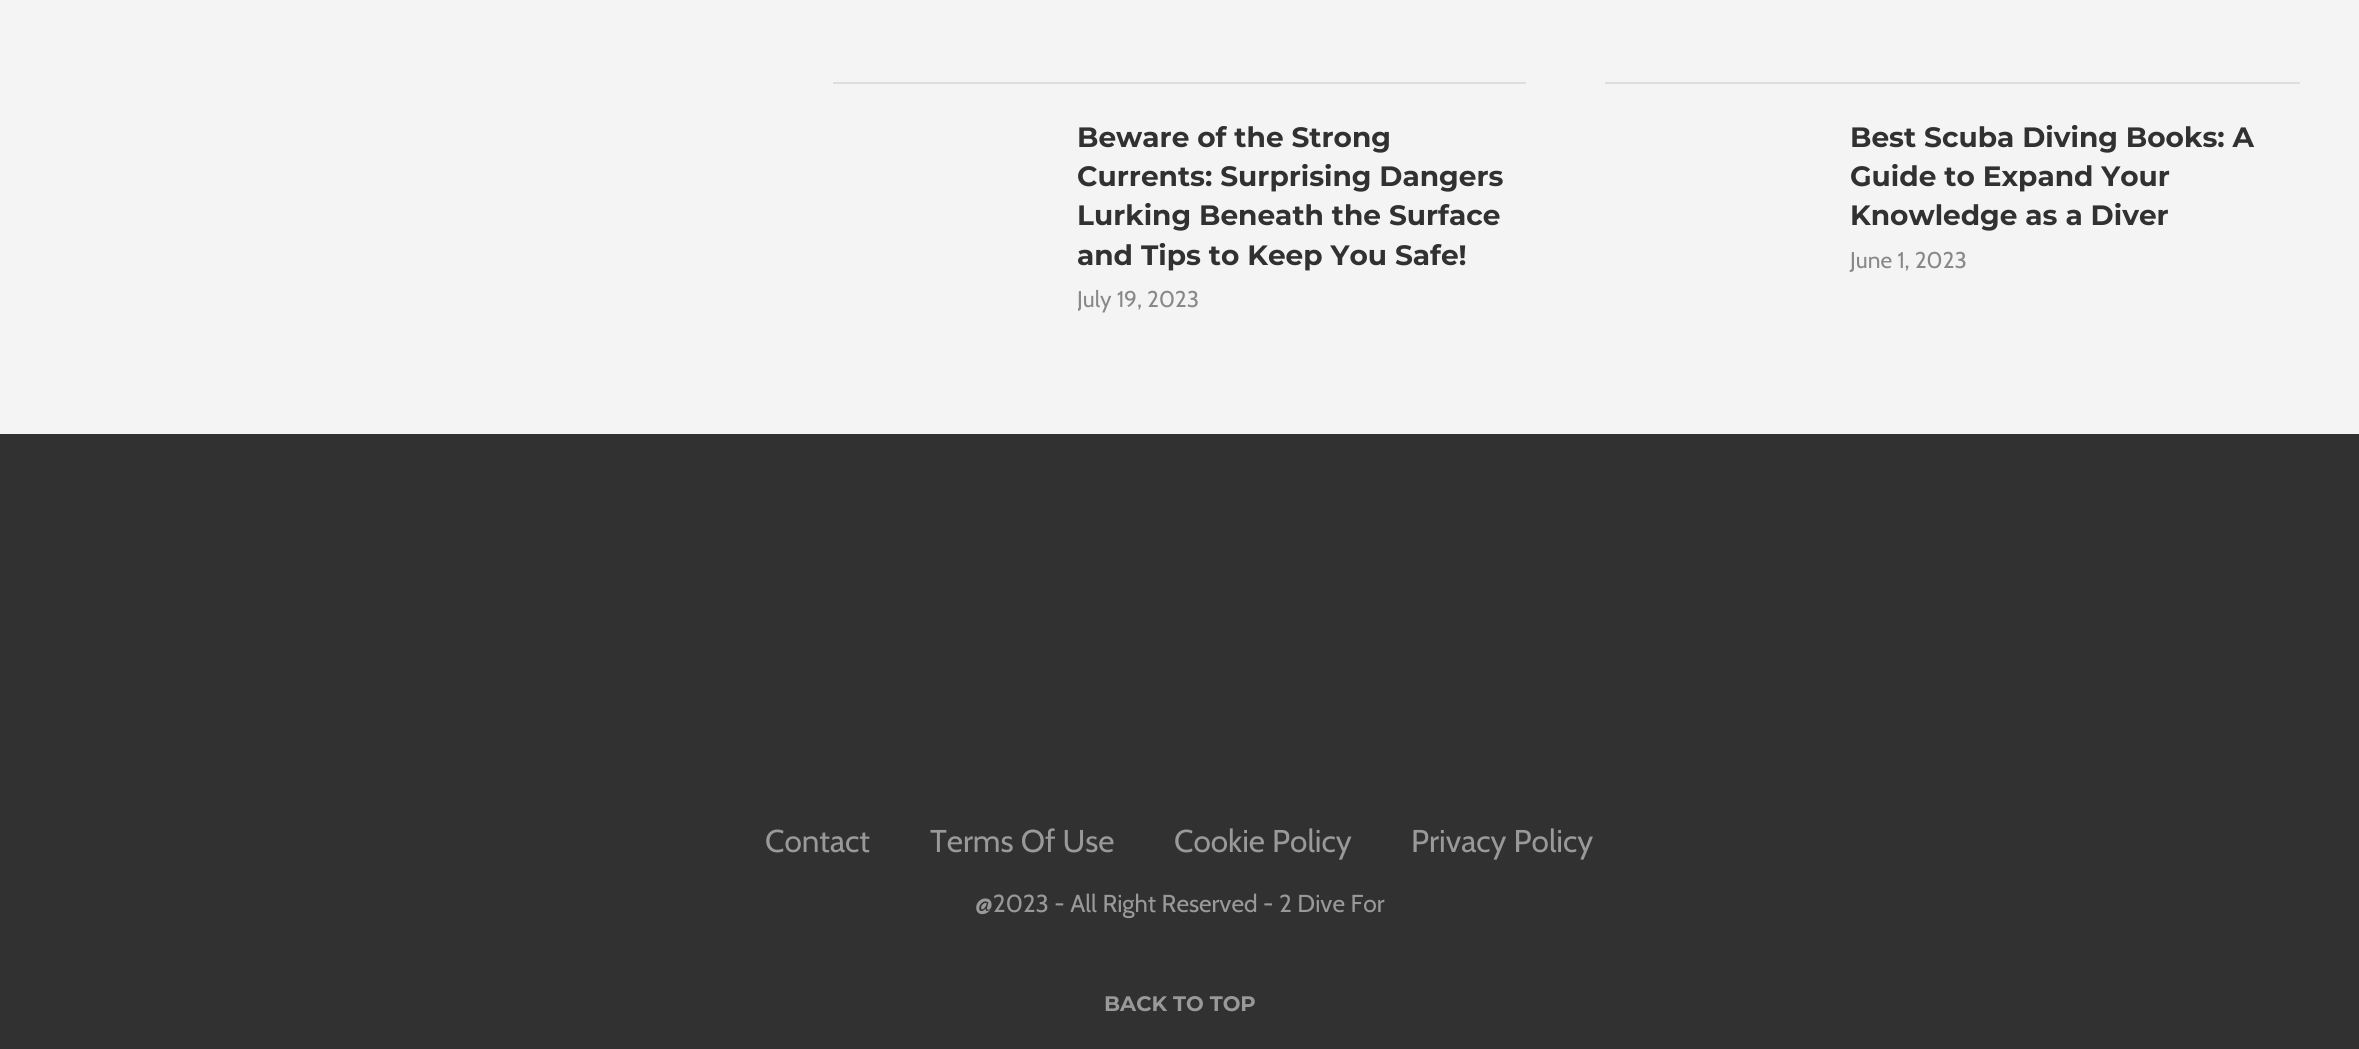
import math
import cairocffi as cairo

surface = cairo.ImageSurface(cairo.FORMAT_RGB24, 2359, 1049)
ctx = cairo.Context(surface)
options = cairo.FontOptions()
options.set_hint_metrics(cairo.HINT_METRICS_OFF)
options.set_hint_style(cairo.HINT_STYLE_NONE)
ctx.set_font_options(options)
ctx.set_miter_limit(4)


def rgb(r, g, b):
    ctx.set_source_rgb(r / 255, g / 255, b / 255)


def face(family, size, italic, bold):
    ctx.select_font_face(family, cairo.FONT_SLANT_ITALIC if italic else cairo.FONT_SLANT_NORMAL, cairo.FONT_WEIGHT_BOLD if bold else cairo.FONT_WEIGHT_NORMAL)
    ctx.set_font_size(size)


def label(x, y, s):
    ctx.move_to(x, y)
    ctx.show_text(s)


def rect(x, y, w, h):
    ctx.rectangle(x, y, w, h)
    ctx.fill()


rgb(244, 244, 244)
ctx.paint()
rgb(222, 222, 222)
rect(833, 82, 693, 2)
face('Montserrat', 28, 0, 1)
rgb(49, 49, 49)
label(1077, 147, 'Beware of the Strong')
label(1077, 186, 'Currents: Surprising Dangers')
label(1077, 225, 'Lurking Beneath the Surface')
label(1077, 265, 'and Tips to Keep You Safe!')
ctx.save()
ctx.rectangle(1078, 119, 448, 194)
ctx.clip()
face('Cabin', 22.75, 0, 0)
rgb(136, 136, 136)
label(1077, 307, 'July 19, 2023')
ctx.restore()
rgb(222, 222, 222)
rect(1605, 82, 695, 2)
rgb(49, 49, 49)
label(1850, 147, 'Best Scuba Diving Books: A')
label(1850, 186, 'Guide to Expand Your')
label(1850, 225, 'Knowledge as a Diver')
face('Cabin', 22.75, 0, 0)
rgb(136, 136, 136)
label(1850, 268, 'June 1, 2023')
rgb(49, 49, 49)
rect(0, 434, 2359, 615)
face('Cabin', 31.5, 0, 0)
rgb(153, 153, 153)
label(765, 852, 'Contact')
label(930, 852, 'Terms Of Use')
label(1174, 852, 'Cookie Policy')
label(1411, 852, 'Privacy Policy')
face('Cabin', 24.5, 0, 0)
label(975, 912, '@2023 - All Right Reserved - 2 Dive For')
face('Montserrat', 21, 0, 1)
label(1104, 1011, 'BACK TO TOP')
surface.write_to_png('render.png')
